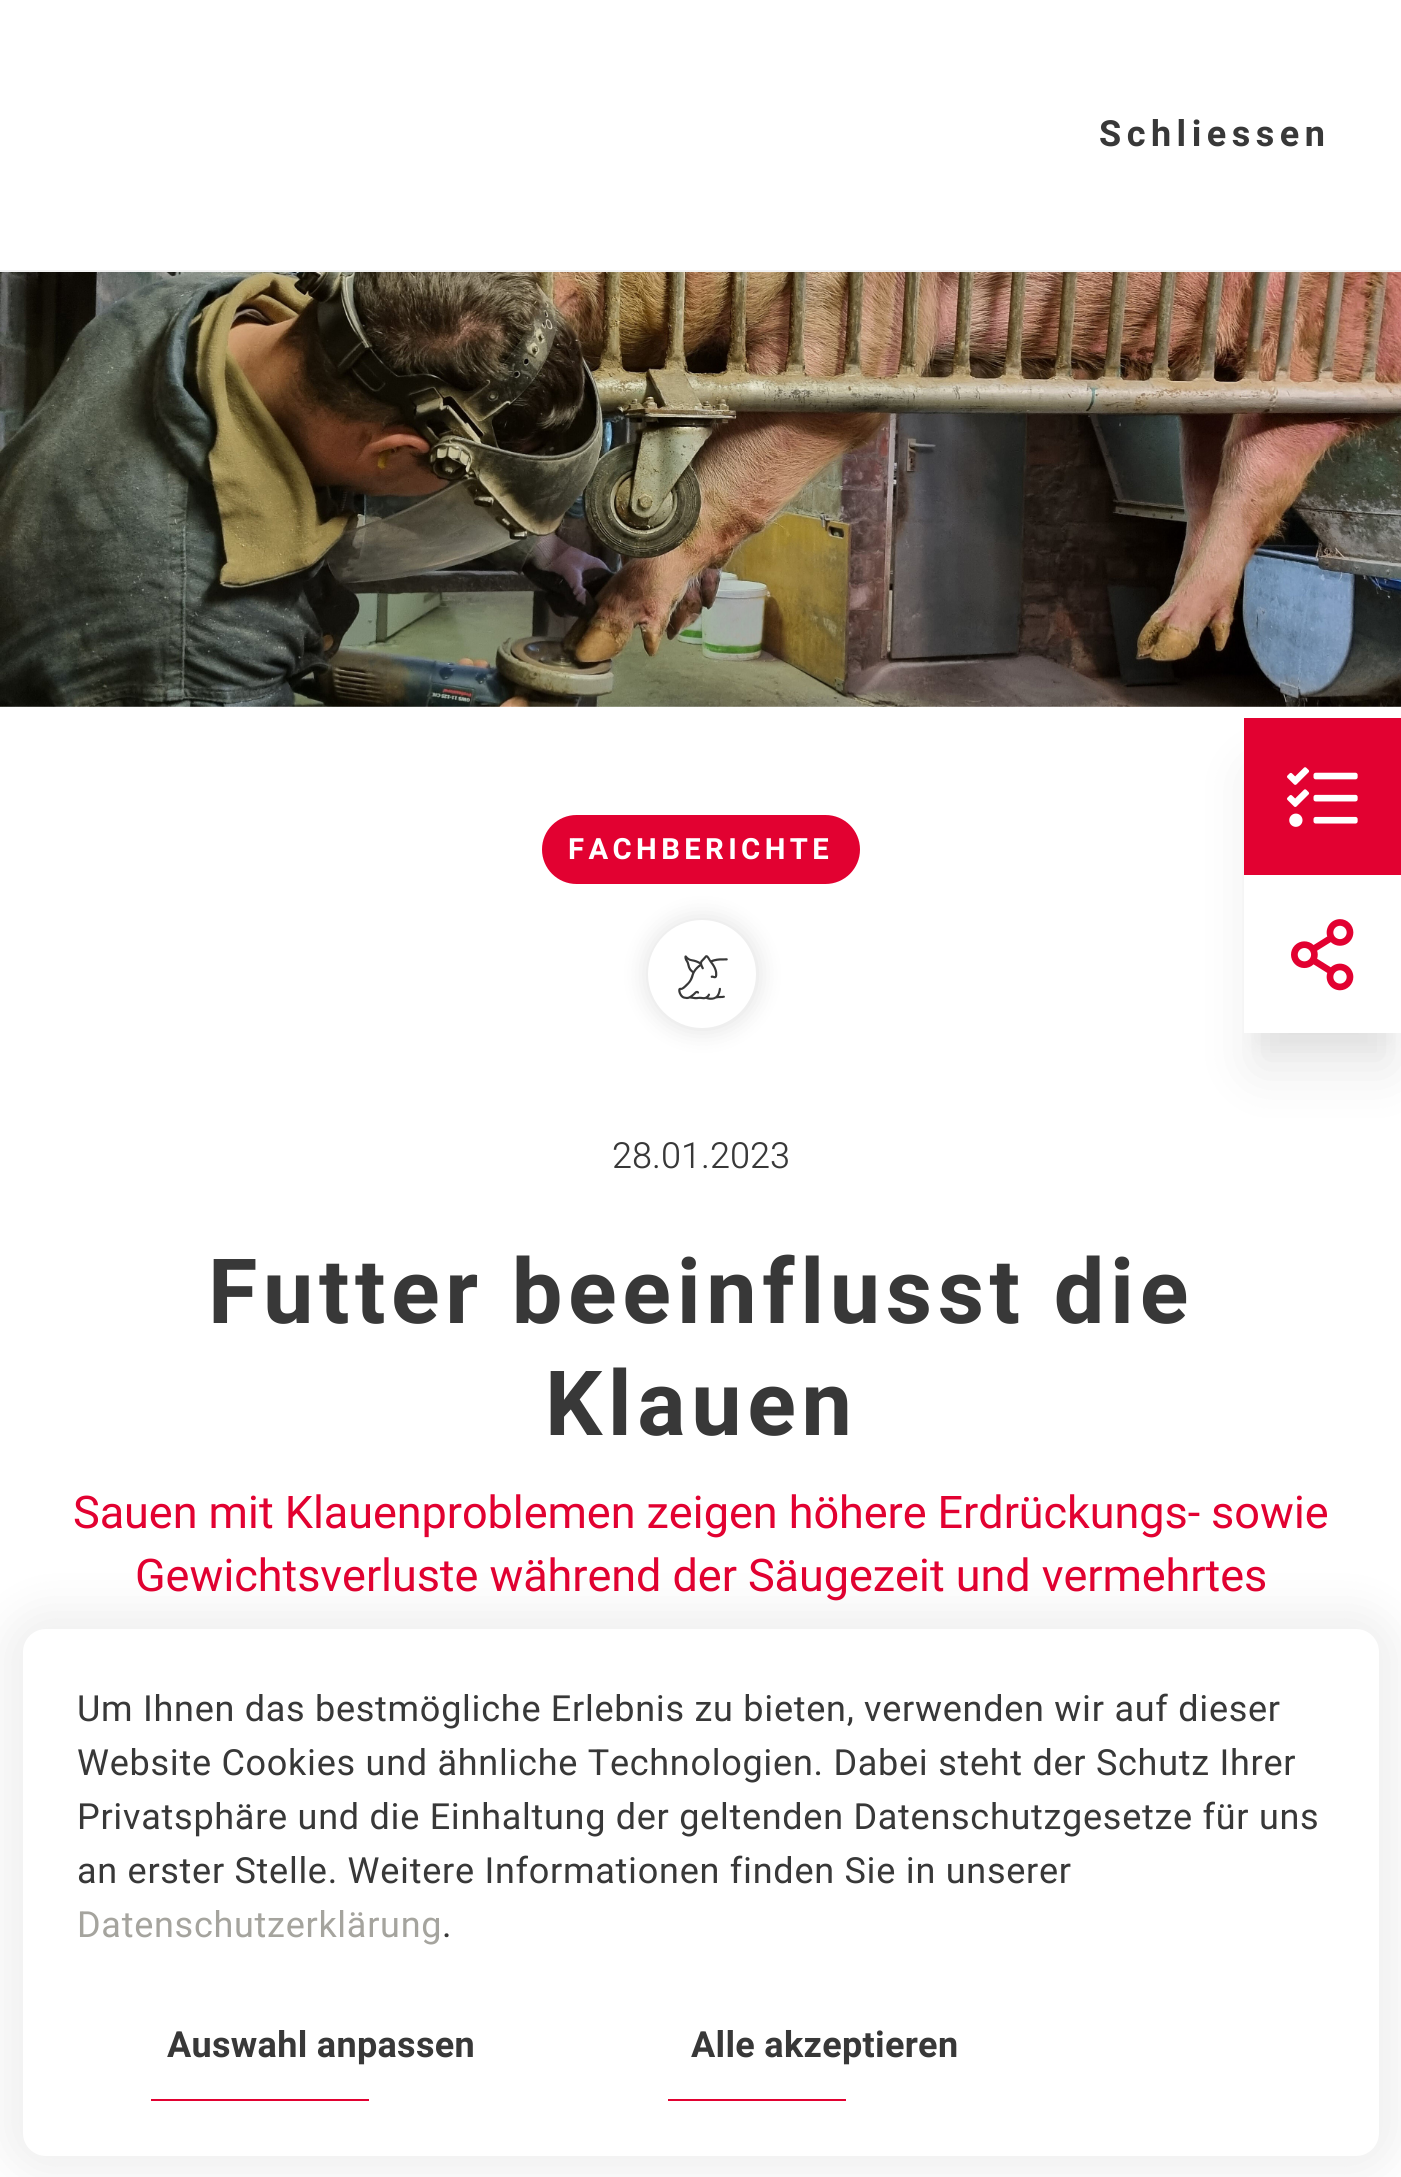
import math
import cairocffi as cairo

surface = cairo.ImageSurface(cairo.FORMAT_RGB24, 1401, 2177)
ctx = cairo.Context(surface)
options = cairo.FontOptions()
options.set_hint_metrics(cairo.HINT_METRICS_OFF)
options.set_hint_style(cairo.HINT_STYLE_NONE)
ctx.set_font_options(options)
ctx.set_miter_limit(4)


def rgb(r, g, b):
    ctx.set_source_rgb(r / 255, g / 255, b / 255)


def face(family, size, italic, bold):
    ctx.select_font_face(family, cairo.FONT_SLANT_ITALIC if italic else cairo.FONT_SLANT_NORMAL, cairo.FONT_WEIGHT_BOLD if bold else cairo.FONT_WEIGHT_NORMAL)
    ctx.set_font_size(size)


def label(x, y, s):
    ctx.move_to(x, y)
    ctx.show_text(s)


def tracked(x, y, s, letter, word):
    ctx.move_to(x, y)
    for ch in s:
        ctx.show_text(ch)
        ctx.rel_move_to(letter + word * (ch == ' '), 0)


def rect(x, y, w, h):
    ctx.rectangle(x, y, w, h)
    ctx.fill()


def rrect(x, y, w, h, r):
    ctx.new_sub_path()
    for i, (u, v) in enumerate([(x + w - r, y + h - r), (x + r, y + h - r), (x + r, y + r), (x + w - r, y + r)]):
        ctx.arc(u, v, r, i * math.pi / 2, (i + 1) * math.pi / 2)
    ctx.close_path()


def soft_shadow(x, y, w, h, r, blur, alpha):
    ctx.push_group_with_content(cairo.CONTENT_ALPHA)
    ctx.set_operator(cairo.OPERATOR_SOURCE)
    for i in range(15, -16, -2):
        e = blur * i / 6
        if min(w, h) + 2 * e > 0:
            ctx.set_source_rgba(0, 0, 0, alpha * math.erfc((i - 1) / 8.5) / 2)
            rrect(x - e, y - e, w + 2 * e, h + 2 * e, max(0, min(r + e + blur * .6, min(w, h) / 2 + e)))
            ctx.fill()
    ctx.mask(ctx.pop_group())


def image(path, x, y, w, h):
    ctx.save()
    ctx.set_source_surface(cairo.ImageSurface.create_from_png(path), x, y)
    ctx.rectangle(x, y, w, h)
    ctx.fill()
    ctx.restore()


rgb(255, 255, 255)
ctx.paint()
rgb(243, 243, 243)
rect(0, 270, 1401, 2)
face('Heebo', 36, 0, 1)
rgb(56, 56, 56)
tracked(1099, 146, 'Schliessen', 5.5, 0)
image('image0.png', 0, 272, 1401, 435)
rgb(226, 1, 49)
rrect(542, 815, 318, 69, 34.5)
ctx.fill()
face('Heebo', 29.25, 0, 1)
rgb(255, 255, 255)
tracked(568, 859, 'FACHBERICHTE', 4.4, 0)
rgb(0, 0, 0)
soft_shadow(644, 916, 117, 117, 58.5, 11, 0.1)
rgb(255, 255, 255)
ctx.arc(702, 974, 54, 0, 2 * math.pi)
ctx.fill()
image('image1.png', 678, 955, 50, 45)
face('Heebo Light', 36, 0, 0)
rgb(56, 56, 56)
label(612, 1168, '28.01.2023')
face('Heebo', 90, 0, 1)
tracked(208, 1323, 'Futter beeinflusst die', 5.6, 0)
tracked(545, 1435, 'Klauen', 5.6, 0)
face('Heebo', 45, 0, 0)
rgb(226, 1, 49)
tracked(73, 1528, 'Sauen mit Klauenproblemen zeigen höhere Erdrückungs- sowie', -0.07, 0)
tracked(135, 1591, 'Gewichtsverluste während der Säugezeit und vermehrtes', -0.07, 0)
rgb(0, 0, 0)
soft_shadow(1256, 752, 135, 292, 0, 11, 0.04)
soft_shadow(1256, 774, 135, 293, 0, 28, 0.1)
rgb(226, 1, 49)
rect(1244, 718, 157, 157)
image('image2.png', 1287, 767, 71, 60)
rgb(255, 255, 255)
rect(1244, 875, 157, 158)
image('image3.png', 1291, 919, 63, 72)
rgb(0, 0, 0)
soft_shadow(0, 1607, 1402, 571, 45, 22.5, 0.06)
rgb(255, 255, 255)
rrect(23, 1629, 1356, 527, 23)
ctx.fill()
face('Heebo', 36, 0, 0)
rgb(56, 56, 56)
tracked(77, 1721, 'Um Ihnen das bestmögliche Erlebnis zu bieten, verwenden wir auf dieser', 0.72, 0)
tracked(77, 1775, 'Website Cookies und ähnliche Technologien. Dabei steht der Schutz Ihrer', 0.72, 0)
tracked(77, 1829, 'Privatsphäre und die Einhaltung der geltenden Datenschutzgesetze für uns', 0.72, 0)
tracked(77, 1883, 'an erster Stelle. Weitere Informationen finden Sie in unserer', 0.72, 0)
rgb(165, 164, 158)
tracked(77, 1937, 'Datenschutzerklärung', 0.72, 0)
rgb(56, 56, 56)
tracked(442, 1937, '.', 0.72, 0)
face('Heebo', 36, 0, 1)
tracked(167, 2057, 'Auswahl anpassen', 0.3, 0)
rgb(226, 1, 49)
rect(151, 2099, 218, 2)
rgb(56, 56, 56)
tracked(691, 2057, 'Alle akzeptieren', 0.3, 0)
rgb(226, 1, 49)
rect(668, 2099, 178, 2)
surface.write_to_png('render.png')
